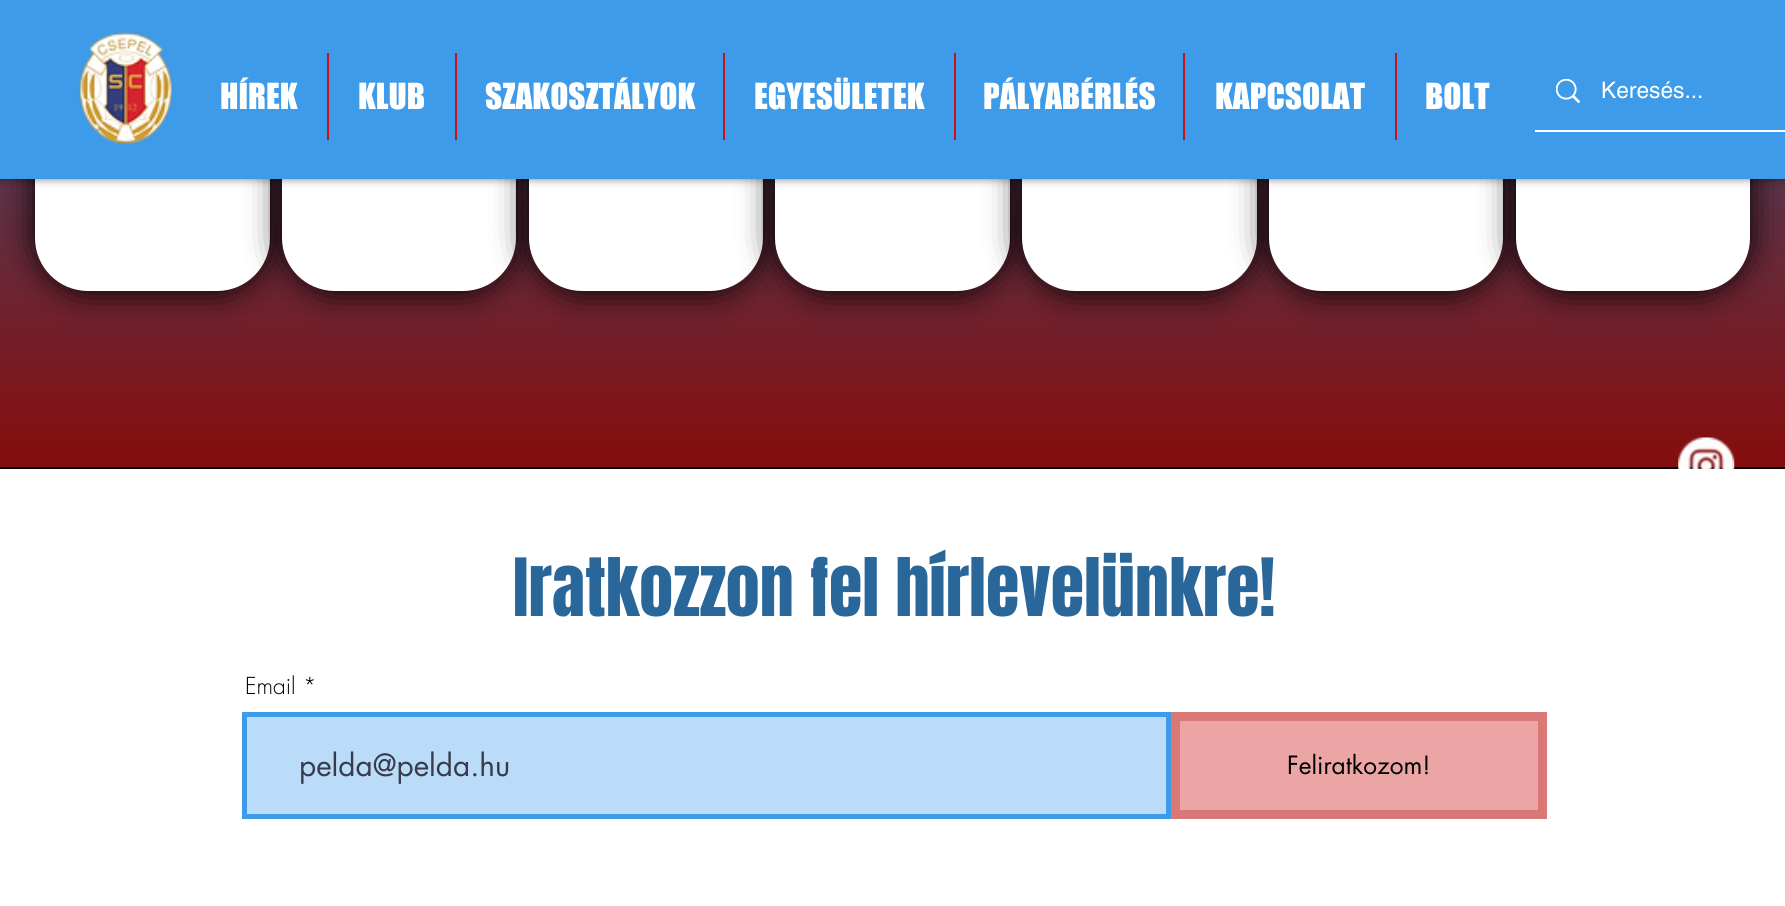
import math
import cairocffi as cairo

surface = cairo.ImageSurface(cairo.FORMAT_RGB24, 1785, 906)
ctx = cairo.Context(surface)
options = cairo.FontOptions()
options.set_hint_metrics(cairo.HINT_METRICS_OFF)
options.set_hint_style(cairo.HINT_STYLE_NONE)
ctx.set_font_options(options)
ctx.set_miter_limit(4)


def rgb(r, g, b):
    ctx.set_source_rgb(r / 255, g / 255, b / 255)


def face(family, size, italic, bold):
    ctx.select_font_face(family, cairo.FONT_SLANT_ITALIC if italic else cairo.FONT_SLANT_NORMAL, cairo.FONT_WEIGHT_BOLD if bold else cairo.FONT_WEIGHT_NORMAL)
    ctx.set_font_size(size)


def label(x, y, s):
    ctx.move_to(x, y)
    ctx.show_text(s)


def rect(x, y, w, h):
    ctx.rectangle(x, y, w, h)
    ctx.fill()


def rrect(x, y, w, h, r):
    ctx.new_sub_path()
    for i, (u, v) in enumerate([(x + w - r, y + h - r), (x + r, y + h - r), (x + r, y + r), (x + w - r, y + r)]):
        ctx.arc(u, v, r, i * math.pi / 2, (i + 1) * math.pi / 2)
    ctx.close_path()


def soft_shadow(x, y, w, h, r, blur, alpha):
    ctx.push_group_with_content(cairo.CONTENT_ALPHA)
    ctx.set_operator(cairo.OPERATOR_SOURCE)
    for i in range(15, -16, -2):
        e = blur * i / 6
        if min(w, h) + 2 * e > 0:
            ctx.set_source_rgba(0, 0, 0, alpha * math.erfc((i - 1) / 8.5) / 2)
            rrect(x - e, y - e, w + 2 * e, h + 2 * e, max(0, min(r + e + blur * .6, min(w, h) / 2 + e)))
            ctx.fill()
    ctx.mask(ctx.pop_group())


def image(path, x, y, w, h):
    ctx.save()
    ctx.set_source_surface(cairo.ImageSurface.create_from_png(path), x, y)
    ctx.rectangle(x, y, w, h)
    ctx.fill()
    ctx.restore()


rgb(255, 255, 255)
ctx.paint()
gradient = cairo.LinearGradient(893, -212, 893, 467)
gradient.add_color_stop_rgba(0, 0.161, 0.404, 0.608, 1)
gradient.add_color_stop_rgba(1, 0.522, 0.051, 0.051, 1)
ctx.set_source(gradient)
rect(0, 179, 1785, 288)
rgb(0, 0, 0)
rect(0, 467, 1785, 2)
rgb(0, 0, 0)
soft_shadow(35, -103, 235, 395, 53, 16.5, 1)
rgb(255, 255, 255)
rrect(35, -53, 235, 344, 53)
ctx.fill()
rgb(0, 0, 0)
soft_shadow(282, -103, 234, 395, 53, 16.5, 1)
rgb(255, 255, 255)
rrect(282, -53, 234, 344, 53)
ctx.fill()
rgb(0, 0, 0)
soft_shadow(529, -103, 234, 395, 53, 16.5, 1)
rgb(255, 255, 255)
rrect(529, -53, 234, 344, 53)
ctx.fill()
rgb(0, 0, 0)
soft_shadow(775, -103, 235, 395, 53, 16.5, 1)
rgb(255, 255, 255)
rrect(775, -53, 235, 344, 53)
ctx.fill()
rgb(0, 0, 0)
soft_shadow(1022, -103, 235, 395, 53, 16.5, 1)
rgb(255, 255, 255)
rrect(1022, -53, 235, 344, 53)
ctx.fill()
rgb(0, 0, 0)
soft_shadow(1269, -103, 234, 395, 53, 16.5, 1)
rgb(255, 255, 255)
rrect(1269, -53, 234, 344, 53)
ctx.fill()
rgb(0, 0, 0)
soft_shadow(1516, -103, 234, 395, 53, 16.5, 1)
rgb(255, 255, 255)
rrect(1516, -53, 234, 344, 53)
ctx.fill()
rgb(0, 0, 0)
soft_shadow(0, 0, 1785, 179, 0, 4.5, 0.5)
rgb(62, 155, 233)
rect(0, 0, 1785, 179)
image('image0.png', 78, 32, 96, 113)
face('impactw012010', 33.25, 0, 0)
rgb(255, 255, 255)
label(220, 109, 'HÍREK')
rgb(199, 19, 19)
rect(327, 53, 2, 87)
rgb(255, 255, 255)
label(358, 109, 'KLUB')
rgb(199, 19, 19)
rect(455, 53, 2, 87)
rgb(255, 255, 255)
label(485, 109, 'SZAKOSZTÁLYOK')
rgb(199, 19, 19)
rect(723, 53, 2, 87)
rgb(255, 255, 255)
label(754, 109, 'EGYESÜLETEK')
rgb(199, 19, 19)
rect(954, 53, 2, 87)
rgb(255, 255, 255)
label(983, 109, 'PÁLYABÉRLÉS')
rgb(199, 19, 19)
rect(1183, 53, 2, 87)
rgb(255, 255, 255)
label(1215, 109, 'KAPCSOLAT')
rgb(199, 19, 19)
rect(1395, 53, 2, 87)
rgb(255, 255, 255)
label(1425, 109, 'BOLT')
rect(1535, 130, 250, 2)
image('image1.png', 1556, 79, 24, 24)
face('helvetica', 22.75, 0, 0)
label(1601, 98, 'Keresés...')
image('image2.png', 1678, 437, 57, 32)
face('Anton', 68.25, 0, 0)
rgb(41, 103, 155)
label(513, 616, 'Iratkozzon fel hírlevelünkre!')
face('futura Light', 22.75, 0, 0)
rgb(0, 0, 0)
label(245, 694, 'Email *')
rgb(187, 220, 248)
ctx.rectangle(244.5, 714.5, 924, 102)
ctx.fill_preserve()
rgb(62, 155, 233)
ctx.set_line_width(5)
ctx.stroke()
face('futura', 29.75, 0, 0)
rgb(55, 59, 77)
label(299, 776, 'pelda@pelda.hu')
rgb(236, 165, 165)
ctx.rectangle(1175.5, 716.5, 367, 98)
ctx.fill_preserve()
rgb(218, 119, 119)
ctx.set_line_width(9)
ctx.stroke()
face('futura', 24.5, 0, 0)
rgb(0, 0, 0)
label(1287, 774, 'Feliratkozom!')
surface.write_to_png('render.png')
